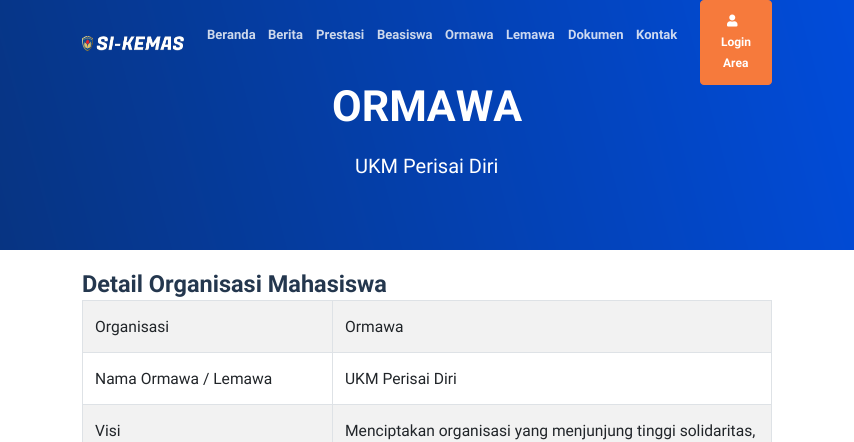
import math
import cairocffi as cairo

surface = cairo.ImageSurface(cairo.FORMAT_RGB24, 854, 442)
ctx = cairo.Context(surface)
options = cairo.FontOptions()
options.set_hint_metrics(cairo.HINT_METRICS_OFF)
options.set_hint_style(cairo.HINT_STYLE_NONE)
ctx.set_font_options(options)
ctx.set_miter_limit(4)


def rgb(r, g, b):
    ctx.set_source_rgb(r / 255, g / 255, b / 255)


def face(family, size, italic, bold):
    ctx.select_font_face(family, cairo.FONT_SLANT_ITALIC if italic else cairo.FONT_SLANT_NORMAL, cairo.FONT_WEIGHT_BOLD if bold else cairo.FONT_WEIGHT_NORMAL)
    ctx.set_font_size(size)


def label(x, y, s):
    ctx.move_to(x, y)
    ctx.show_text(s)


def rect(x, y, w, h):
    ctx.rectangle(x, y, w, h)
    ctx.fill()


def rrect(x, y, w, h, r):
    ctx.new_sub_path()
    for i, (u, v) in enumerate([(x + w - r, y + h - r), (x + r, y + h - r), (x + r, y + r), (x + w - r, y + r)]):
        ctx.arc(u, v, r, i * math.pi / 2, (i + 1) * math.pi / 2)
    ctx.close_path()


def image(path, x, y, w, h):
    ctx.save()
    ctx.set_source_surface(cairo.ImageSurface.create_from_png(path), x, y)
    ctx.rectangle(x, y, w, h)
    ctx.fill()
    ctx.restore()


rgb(255, 255, 255)
ctx.paint()
gradient = cairo.LinearGradient(-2.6, 240, 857, 10)
gradient.add_color_stop_rgba(0, 0.027, 0.204, 0.51, 1)
gradient.add_color_stop_rgba(1, 0.004, 0.298, 0.855, 1)
ctx.set_source(gradient)
rect(0, 0, 854, 250)
image('image0.png', 82, 36, 102, 16)
face('Roboto', 13, 0, 1)
rgb(205, 216, 235)
label(207, 39, 'Beranda')
label(268, 39, 'Berita')
label(316, 39, 'Prestasi')
label(377, 39, 'Beasiswa')
label(445, 39, 'Ormawa')
rgb(205, 217, 241)
label(506, 39, 'Lemawa')
label(568, 39, 'Dokumen')
label(636, 39, 'Kontak')
rgb(246, 122, 60)
rrect(700.5, 0.5, 71, 84, 3.5)
ctx.fill_preserve()
ctx.set_line_width(1)
ctx.stroke()
image('image1.png', 727, 14, 11, 13)
face('Roboto', 12, 0, 1)
rgb(255, 255, 255)
label(721, 46, 'Login')
label(723, 67, 'Area')
face('Roboto', 43, 0, 1)
label(332, 121, 'ORMAWA')
face('Roboto', 20, 0, 0)
label(355, 173, 'UKM Perisai Diri')
face('Roboto', 23.5, 0, 1)
rgb(36, 55, 78)
label(82, 292, 'Detail Organisasi Mahasiswa')
rgb(222, 226, 230)
rect(82, 300, 690, 1)
rect(771, 300, 1, 142)
rect(82, 300, 1, 142)
rgb(242, 242, 242)
rect(83, 301, 688, 51)
face('Roboto', 15.6, 0, 0)
rgb(33, 37, 41)
label(95, 332, 'Organisasi')
rgb(222, 226, 230)
rect(332, 352, 440, 1)
rect(332, 404, 440, 1)
rgb(242, 242, 242)
rect(83, 405, 688, 37)
rgb(222, 226, 230)
rect(332, 404, 1, 38)
rect(82, 404, 251, 1)
rect(332, 352, 1, 53)
rect(82, 352, 251, 1)
rect(332, 300, 1, 53)
rgb(33, 37, 41)
label(345, 332, 'Ormawa')
label(95, 384, 'Nama Ormawa / Lemawa')
label(345, 384, 'UKM Perisai Diri')
label(95, 436, 'Visi')
label(345, 436, 'Menciptakan organisasi yang menjunjung tinggi solidaritas,')
surface.write_to_png('render.png')
